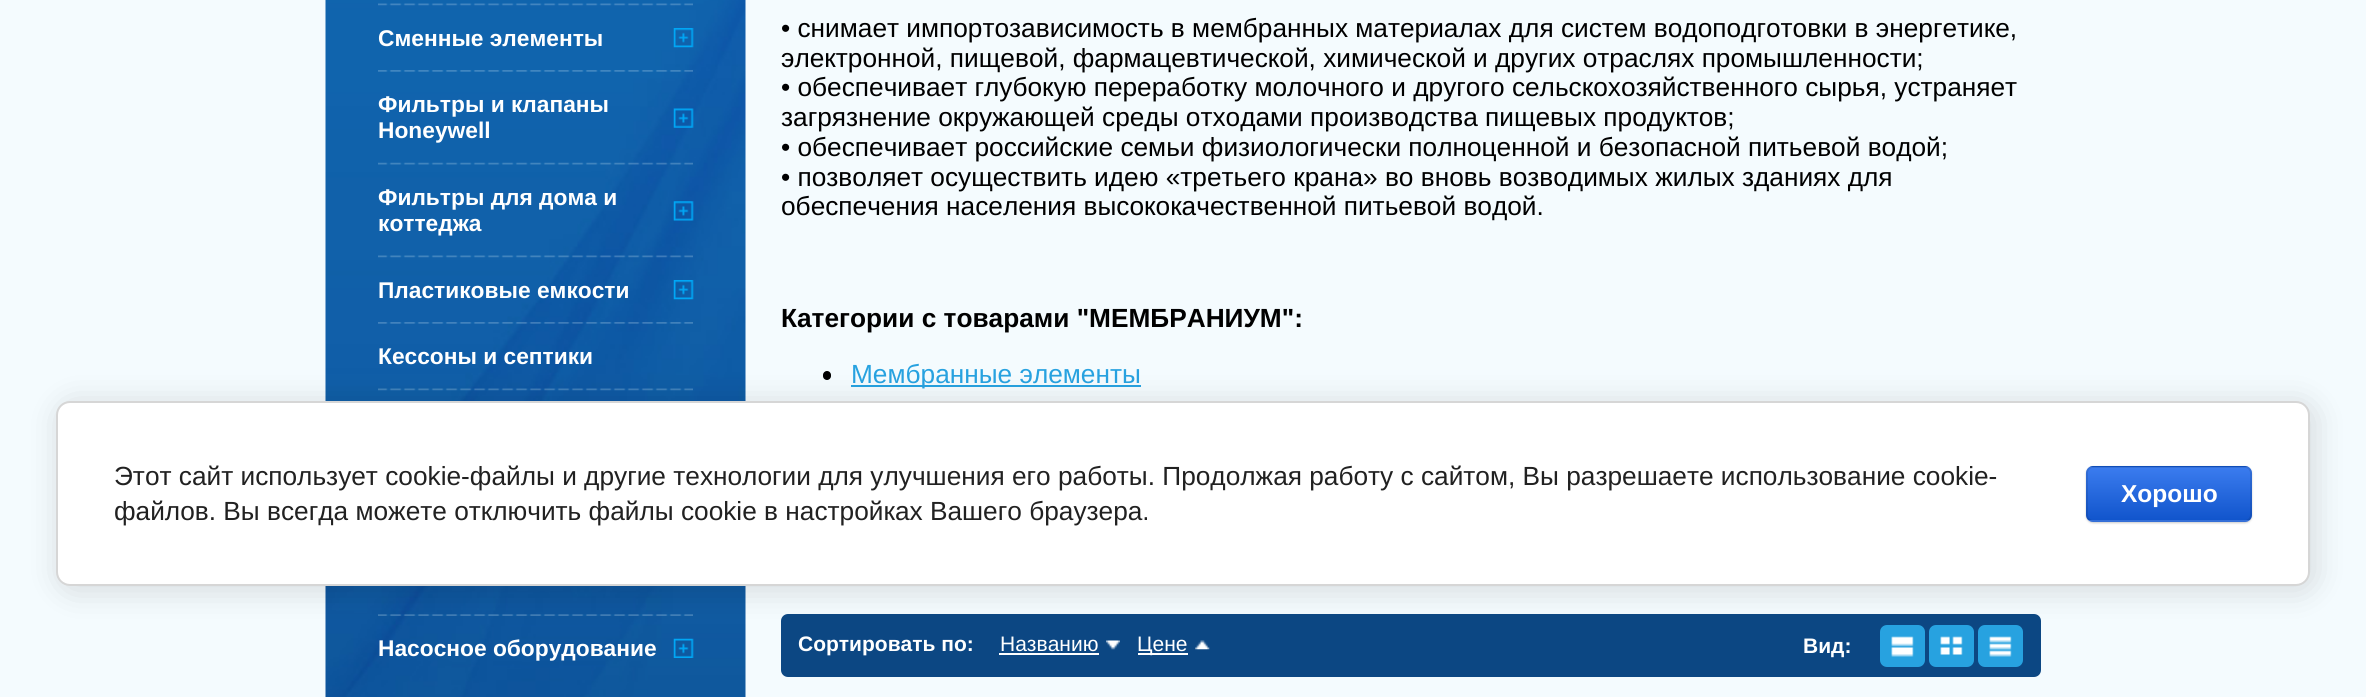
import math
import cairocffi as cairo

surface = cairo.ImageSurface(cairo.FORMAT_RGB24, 2366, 697)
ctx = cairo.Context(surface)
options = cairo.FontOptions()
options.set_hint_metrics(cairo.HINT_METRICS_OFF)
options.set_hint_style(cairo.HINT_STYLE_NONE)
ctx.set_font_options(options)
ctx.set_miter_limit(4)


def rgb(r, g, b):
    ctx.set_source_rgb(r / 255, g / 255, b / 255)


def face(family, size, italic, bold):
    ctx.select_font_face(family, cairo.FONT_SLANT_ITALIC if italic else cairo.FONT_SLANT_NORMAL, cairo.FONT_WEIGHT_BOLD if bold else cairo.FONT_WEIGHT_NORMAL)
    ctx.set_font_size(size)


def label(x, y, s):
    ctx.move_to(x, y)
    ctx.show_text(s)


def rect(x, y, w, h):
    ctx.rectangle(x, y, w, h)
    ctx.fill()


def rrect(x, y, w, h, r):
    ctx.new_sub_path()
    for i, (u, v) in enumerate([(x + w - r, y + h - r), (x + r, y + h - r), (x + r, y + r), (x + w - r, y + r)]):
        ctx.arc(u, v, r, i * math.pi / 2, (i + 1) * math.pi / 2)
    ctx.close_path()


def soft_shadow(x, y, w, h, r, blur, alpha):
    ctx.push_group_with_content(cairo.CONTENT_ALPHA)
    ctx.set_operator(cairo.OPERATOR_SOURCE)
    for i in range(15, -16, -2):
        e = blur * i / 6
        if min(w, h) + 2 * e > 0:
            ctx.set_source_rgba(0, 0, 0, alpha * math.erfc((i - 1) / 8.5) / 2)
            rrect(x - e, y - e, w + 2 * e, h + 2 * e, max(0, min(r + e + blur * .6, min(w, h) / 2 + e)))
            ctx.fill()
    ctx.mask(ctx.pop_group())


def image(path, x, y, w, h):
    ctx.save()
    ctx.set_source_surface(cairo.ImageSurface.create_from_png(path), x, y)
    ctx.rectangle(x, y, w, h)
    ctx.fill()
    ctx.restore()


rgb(244, 251, 254)
ctx.paint()
image('image0.png', 325, 0, 421, 697)
image('image1.png', 378, 3, 315, 3)
image('image2.png', 673, 28, 21, 20)
face('Arimo', 22.75, 0, 1)
rgb(255, 255, 255)
label(378, 46, 'Сменные элементы')
image('image3.png', 378, 70, 315, 2)
image('image4.png', 673, 108, 21, 20)
label(378, 112, 'Фильтры и клапаны')
label(378, 138, 'Honeywell')
image('image5.png', 378, 162, 315, 3)
image('image6.png', 673, 201, 21, 20)
label(378, 205, 'Фильтры для дома и')
label(378, 231, 'коттеджа')
image('image7.png', 378, 255, 315, 3)
image('image8.png', 673, 280, 21, 20)
label(378, 298, 'Пластиковые емкости')
image('image9.png', 378, 322, 315, 2)
label(378, 364, 'Кессоны и септики')
image('image10.png', 378, 388, 315, 3)
image('image11.png', 378, 614, 315, 2)
image('image12.png', 673, 638, 21, 20)
label(378, 656, 'Насосное оборудование')
face('Liberation Sans', 26.25, 0, 0)
rgb(0, 0, 0)
label(781, 37, '• снимает импортозависимость в мембранных материалах для систем водоподготовки в энергетике,')
label(781, 67, 'электронной, пищевой, фармацевтической, химической и других отраслях промышленности;')
label(781, 96, '• обеспечивает глубокую переработку молочного и другого сельскохозяйственного сырья, устраняет')
label(781, 126, 'загрязнение окружающей среды отходами производства пищевых продуктов;')
label(781, 156, '• обеспечивает российские семьи физиологически полноценной и безопасной питьевой водой;')
label(781, 186, '• позволяет осуществить идею «третьего крана» во вновь возводимых жилых зданиях для')
label(781, 215, 'обеспечения населения высококачественной питьевой водой.')
face('Liberation Sans', 26.25, 0, 1)
label(781, 327, 'Категории с товарами "МЕМБРАНИУМ":')
rrect(823, 371, 8, 9, 4)
ctx.fill()
rgb(39, 162, 224)
rect(851, 385, 290, 2)
face('Liberation Sans', 26.25, 0, 0)
label(851, 383, 'Мембранные элементы')
rgb(12, 71, 131)
rrect(781, 614, 1260, 63, 7)
ctx.fill()
face('Liberation Sans', 21, 0, 1)
rgb(255, 255, 255)
label(798, 651, 'Сортировать по:')
face('Liberation Sans', 21, 0, 0)
label(1000, 651, 'Названию')
rect(999, 653, 100, 2)
image('image13.png', 1106, 640, 14, 10)
rect(1138, 653, 50, 2)
label(1137, 651, 'Цене')
image('image14.png', 1195, 640, 15, 10)
face('Liberation Sans', 21, 0, 1)
label(1803, 653, 'Вид:')
rgb(39, 162, 224)
rrect(1880, 625, 45, 42, 7)
ctx.fill()
image('image15.png', 1891, 636, 23, 21)
rrect(1929, 625, 45, 42, 7)
ctx.fill()
image('image16.png', 1940, 636, 23, 19)
rrect(1978, 625, 45, 42, 7)
ctx.fill()
image('image17.png', 1989, 636, 23, 21)
rgb(0, 0, 0)
soft_shadow(60, 404, 2254, 186, 14, 16, 0.14)
rgb(255, 255, 255)
rrect(57, 402, 2252, 183, 13)
ctx.fill_preserve()
rgb(214, 214, 214)
ctx.stroke()
face('Liberation Sans', 26.25, 0, 0)
rgb(33, 33, 33)
label(114, 485, 'Этот сайт использует cookie-файлы и другие технологии для улучшения его работы. Продолжая работу с сайтом, Вы разрешаете использование cookie-')
label(114, 520, 'файлов. Вы всегда можете отключить файлы cookie в настройках Вашего браузера.')
rgb(0, 0, 0)
soft_shadow(2086, 467, 166, 56, 7, 1, 0.2)
ctx.save()
rrect(2086, 466, 166, 56, 7)
ctx.clip()
gradient = cairo.LinearGradient(2169, 415, 2169, 467)
gradient.add_color_stop_rgba(0, 0.231, 0.486, 0.937, 1)
gradient.add_color_stop_rgba(1, 0.067, 0.333, 0.8, 1)
ctx.set_source(gradient)
rect(2086, 466, 166, 1)
gradient = cairo.LinearGradient(2169, 467, 2169, 520)
gradient.add_color_stop_rgba(0, 0.231, 0.486, 0.937, 1)
gradient.add_color_stop_rgba(1, 0.067, 0.333, 0.8, 1)
ctx.set_source(gradient)
rect(2086, 467, 166, 53)
gradient = cairo.LinearGradient(2169, 520, 2169, 572)
gradient.add_color_stop_rgba(0, 0.231, 0.486, 0.937, 1)
gradient.add_color_stop_rgba(1, 0.067, 0.333, 0.8, 1)
ctx.set_source(gradient)
rect(2086, 520, 166, 2)
ctx.restore()
rrect(2087, 467, 164, 54, 6)
ctx.set_source_rgba(0, 0, 0, 0.1)
ctx.stroke()
face('Liberation Sans', 24.5, 0, 1)
rgb(255, 255, 255)
label(2121, 502, 'Хорошо')
surface.write_to_png('render.png')
